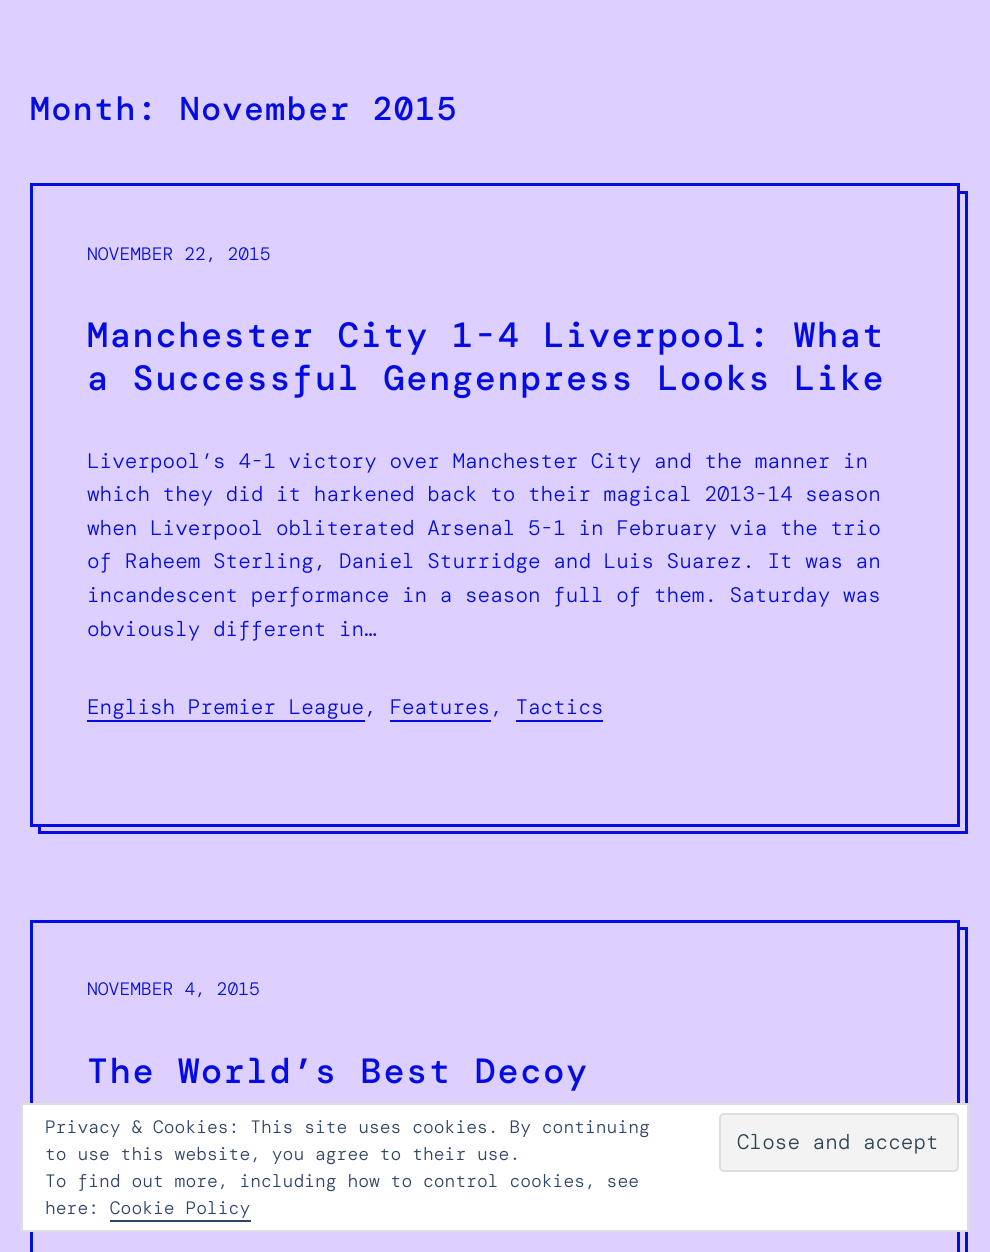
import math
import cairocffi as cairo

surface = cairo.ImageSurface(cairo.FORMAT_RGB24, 990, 1252)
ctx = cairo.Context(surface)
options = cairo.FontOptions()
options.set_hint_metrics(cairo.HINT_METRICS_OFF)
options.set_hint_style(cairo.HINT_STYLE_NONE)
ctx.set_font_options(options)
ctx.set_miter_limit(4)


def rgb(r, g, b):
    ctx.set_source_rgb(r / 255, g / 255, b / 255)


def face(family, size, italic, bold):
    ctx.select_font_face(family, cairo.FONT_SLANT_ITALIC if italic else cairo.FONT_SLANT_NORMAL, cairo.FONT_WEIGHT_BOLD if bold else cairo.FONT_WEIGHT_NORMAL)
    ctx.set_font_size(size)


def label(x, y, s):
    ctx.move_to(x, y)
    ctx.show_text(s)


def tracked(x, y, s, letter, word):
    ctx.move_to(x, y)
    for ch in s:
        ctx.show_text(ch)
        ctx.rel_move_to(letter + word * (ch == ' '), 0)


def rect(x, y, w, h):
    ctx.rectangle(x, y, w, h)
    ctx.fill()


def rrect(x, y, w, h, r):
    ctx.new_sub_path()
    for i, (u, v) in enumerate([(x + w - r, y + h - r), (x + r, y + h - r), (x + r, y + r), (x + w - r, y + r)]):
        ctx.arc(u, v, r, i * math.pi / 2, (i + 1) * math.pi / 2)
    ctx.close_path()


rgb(221, 207, 255)
ctx.paint()
face('DM Mono Medium', 33, 0, 0)
rgb(4, 13, 225)
tracked(30, 120, 'Month: November 2015', 1.6, 0)
ctx.new_path()
ctx.move_to(38, 826)
ctx.line_to(38, 834)
ctx.line_to(968, 834)
ctx.line_to(968, 191)
ctx.line_to(960, 191)
ctx.line_to(960, 826)
ctx.close_path()
ctx.fill()
rgb(221, 207, 255)
ctx.new_path()
ctx.move_to(41, 826)
ctx.line_to(41, 831)
ctx.line_to(965, 831)
ctx.line_to(965, 194)
ctx.line_to(960, 194)
ctx.line_to(960, 826)
ctx.close_path()
ctx.fill()
ctx.rectangle(31.5, 184.5, 927, 641)
rgb(4, 13, 225)
ctx.set_line_width(3)
ctx.stroke()
face('DM Mono Light', 18, 0, 0)
label(87, 260, 'NOVEMBER 22, 2015')
face('DM Mono Medium', 35.1, 0, 0)
tracked(87, 347, 'Manchester City 1-4 Liverpool: What', 1.75, 0)
tracked(87, 390, 'a Successful Gengenpress Looks Like', 1.75, 0)
face('DM Mono Light', 21, 0, 0)
label(87, 468, 'Liverpool’s 4-1 victory over Manchester City and the manner in')
label(87, 501, 'which they did it harkened back to their magical 2013-14 season')
label(87, 535, 'when Liverpool obliterated Arsenal 5-1 in February via the trio')
label(87, 568, 'of Raheem Sterling, Daniel Sturridge and Luis Suarez. It was an')
label(87, 602, 'incandescent performance in a season full of them. Saturday was')
label(87, 636, 'obviously different in…')
label(87, 714, 'English Premier League, Features, Tactics')
rect(87, 720, 278, 2)
rect(390, 720, 101, 2)
rect(516, 720, 87, 2)
ctx.new_path()
ctx.move_to(38, 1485)
ctx.line_to(38, 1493)
ctx.line_to(968, 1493)
ctx.line_to(968, 927)
ctx.line_to(960, 927)
ctx.line_to(960, 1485)
ctx.close_path()
ctx.fill()
rgb(221, 207, 255)
ctx.new_path()
ctx.move_to(41, 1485)
ctx.line_to(41, 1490)
ctx.line_to(965, 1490)
ctx.line_to(965, 930)
ctx.line_to(960, 930)
ctx.line_to(960, 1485)
ctx.close_path()
ctx.fill()
ctx.rectangle(31.5, 921.5, 927, 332)
rgb(4, 13, 225)
ctx.stroke()
face('DM Mono Light', 18, 0, 0)
label(87, 995, 'NOVEMBER 4, 2015')
face('DM Mono Medium', 35.1, 0, 0)
tracked(87, 1083, 'The World’s Best Decoy', 1.75, 0)
rgb(255, 255, 255)
ctx.rectangle(22, 1104, 946, 127)
ctx.fill_preserve()
rgb(222, 222, 222)
ctx.set_line_width(2)
ctx.stroke()
face('DM Mono Light', 18, 0, 0)
rgb(46, 68, 103)
label(45, 1133, 'Privacy & Cookies: This site uses cookies. By continuing')
rgb(243, 243, 243)
rrect(720, 1114, 238, 57, 4)
ctx.fill_preserve()
rgb(222, 222, 222)
ctx.stroke()
face('DM Mono Light', 21, 0, 0)
rgb(46, 68, 83)
label(737, 1149, 'Close and accept')
face('DM Mono Light', 18, 0, 0)
rgb(46, 68, 103)
label(45, 1160, 'to use this website, you agree to their use.')
label(45, 1187, 'To find out more, including how to control cookies, see')
label(45, 1214, 'here: Cookie Policy')
rect(110, 1220, 141, 2)
surface.write_to_png('render.png')
